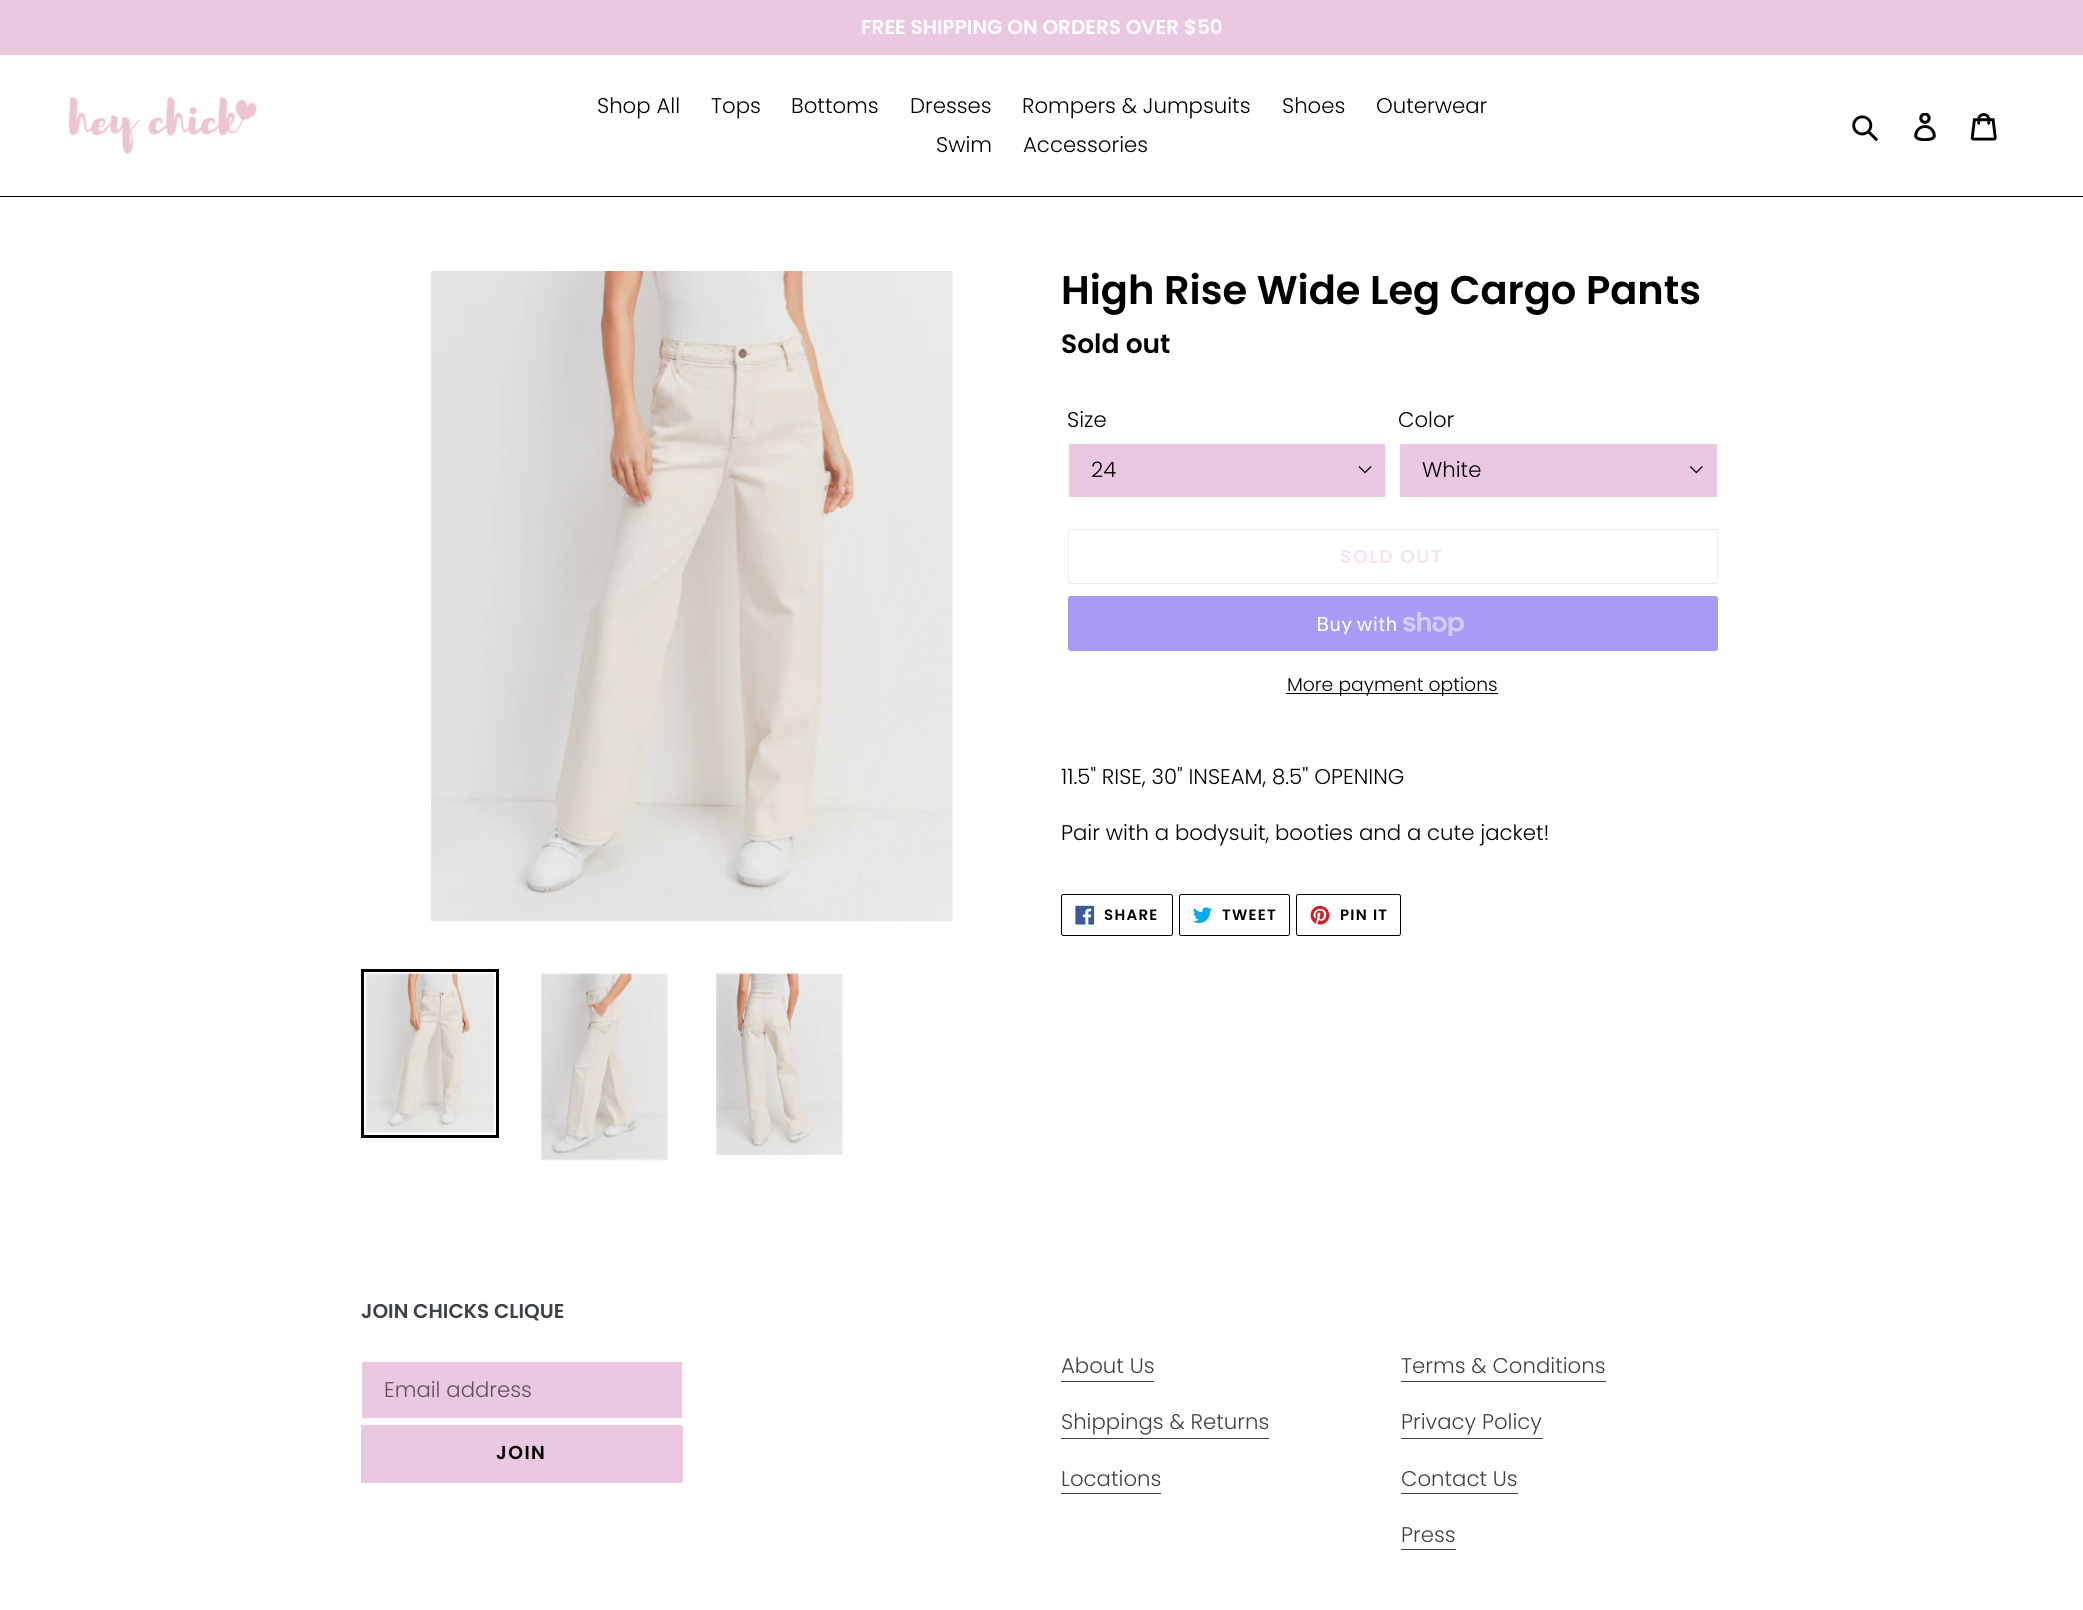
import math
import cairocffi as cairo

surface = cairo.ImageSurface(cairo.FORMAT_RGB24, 2083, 1610)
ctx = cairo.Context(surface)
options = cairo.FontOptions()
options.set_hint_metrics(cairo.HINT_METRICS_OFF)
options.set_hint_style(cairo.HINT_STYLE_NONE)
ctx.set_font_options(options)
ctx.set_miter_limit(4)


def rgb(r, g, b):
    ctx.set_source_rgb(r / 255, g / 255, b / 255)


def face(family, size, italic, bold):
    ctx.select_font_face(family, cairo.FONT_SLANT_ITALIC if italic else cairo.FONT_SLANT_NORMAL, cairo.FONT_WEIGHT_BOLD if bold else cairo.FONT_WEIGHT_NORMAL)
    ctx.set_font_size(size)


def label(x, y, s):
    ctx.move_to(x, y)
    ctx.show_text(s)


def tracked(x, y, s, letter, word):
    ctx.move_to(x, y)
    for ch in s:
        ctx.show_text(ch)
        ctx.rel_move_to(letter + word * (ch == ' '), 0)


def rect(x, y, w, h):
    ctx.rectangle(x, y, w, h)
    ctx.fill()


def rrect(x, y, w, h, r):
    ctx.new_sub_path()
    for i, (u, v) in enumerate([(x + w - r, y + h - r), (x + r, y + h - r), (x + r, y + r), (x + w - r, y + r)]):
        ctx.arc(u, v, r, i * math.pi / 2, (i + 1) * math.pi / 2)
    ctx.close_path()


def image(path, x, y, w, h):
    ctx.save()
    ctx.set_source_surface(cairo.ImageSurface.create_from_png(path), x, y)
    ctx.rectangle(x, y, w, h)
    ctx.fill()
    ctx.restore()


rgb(255, 255, 255)
ctx.paint()
rgb(235, 200, 226)
rect(0, 0, 2083, 55)
face('Poppins SemiBold', 20, 0, 0)
rgb(255, 255, 255)
label(861, 34, 'FREE SHIPPING ON ORDERS OVER $50')
rgb(0, 0, 0)
rect(0, 196, 2083, 1)
image('image0.png', 68, 97, 189, 57)
face('Poppins Light', 21.25, 0, 0)
label(597, 113, 'Shop All')
label(711, 113, 'Tops')
label(791, 113, 'Bottoms')
label(910, 113, 'Dresses')
label(1022, 113, 'Rompers & Jumpsuits')
label(1282, 113, 'Shoes')
label(1376, 113, 'Outerwear')
label(936, 152, 'Swim')
label(1023, 152, 'Accessories')
image('image1.png', 1852, 115, 26, 26)
image('image2.png', 1914, 113, 22, 28)
image('image3.png', 1970, 113, 27, 28)
image('image4.png', 431, 271, 522, 651)
ctx.rectangle(362.5, 970.5, 135, 166)
ctx.set_line_width(3)
ctx.stroke()
image('image5.png', 366, 973, 128, 160)
image('image6.png', 541, 973, 127, 188)
image('image7.png', 716, 973, 127, 183)
face('Poppins SemiBold', 40, 0, 0)
label(1061, 304, 'High Rise Wide Leg Cargo Pants')
face('Poppins SemiBold', 26.5, 0, 0)
label(1061, 353, 'Sold out')
face('Poppins Light', 21.25, 0, 0)
label(1067, 427, 'Size')
rgb(235, 200, 226)
rrect(1068, 443, 318, 55, 2.5)
ctx.fill()
image('image8.png', 1358, 466, 14, 8)
rrect(1068.5, 443.5, 317, 54, 2)
rgb(250, 250, 250)
ctx.set_line_width(1)
ctx.stroke()
rgb(0, 0, 0)
label(1091, 477, '24')
label(1398, 427, 'Color')
rgb(235, 200, 226)
rrect(1399, 443, 319, 55, 2.5)
ctx.fill()
image('image9.png', 1689, 466, 14, 8)
rrect(1399.5, 443.5, 318, 54, 2)
rgb(250, 250, 250)
ctx.stroke()
rgb(0, 0, 0)
label(1422, 477, 'White')
rrect(1068.5, 529.5, 649, 54, 2)
rgb(245, 228, 241)
ctx.stroke()
face('Poppins SemiBold', 18.75, 0, 0)
tracked(1340, 563, 'SOLD OUT', 1.5, 0)
rgb(170, 153, 245)
rrect(1068, 596, 650, 55, 2.5)
ctx.fill()
face('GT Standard', 20, 0, 0)
rgb(255, 255, 255)
label(1316, 631, 'Buy with')
image('image10.png', 1403, 611, 62, 25)
rgb(0, 0, 0)
rect(1286, 693, 212, 1)
face('Poppins Light', 18.75, 0, 0)
label(1287, 691, 'More payment options')
face('Poppins Light', 21.25, 0, 0)
label(1061, 784, '11.5" RISE, 30" INSEAM, 8.5\'\' OPENING')
label(1061, 840, 'Pair with a bodysuit, booties and a cute jacket!')
rrect(1061.5, 894.5, 111, 41, 2)
ctx.stroke()
image('image11.png', 1075, 905, 20, 20)
face('Poppins SemiBold', 15, 0, 0)
tracked(1104, 920, 'SHARE', 1.25, 0)
rrect(1179.5, 894.5, 110, 41, 2)
ctx.stroke()
image('image12.png', 1193, 907, 19, 16)
tracked(1222, 920, 'TWEET', 1.25, 0)
rrect(1296.5, 894.5, 104, 41, 2)
ctx.stroke()
image('image13.png', 1310, 905, 20, 20)
tracked(1340, 920, 'PIN IT', 1.25, 0)
face('Poppins SemiBold', 20, 0, 0)
rgb(61, 66, 70)
label(361, 1318, 'JOIN CHICKS CLIQUE')
rgb(235, 200, 226)
ctx.new_path()
ctx.move_to(363.5, 1361.5)
ctx.line_to(682.5, 1361.5)
ctx.line_to(682.5, 1418.5)
ctx.line_to(363.5, 1418.5)
ctx.curve_to(362.5, 1418.5, 361.5, 1417.5, 361.5, 1416.5)
ctx.line_to(361.5, 1363.5)
ctx.curve_to(361.5, 1362.5, 362.5, 1361.5, 363.5, 1361.5)
ctx.close_path()
ctx.fill_preserve()
rgb(250, 250, 250)
ctx.stroke()
face('Poppins Light', 21.25, 0, 0)
rgb(94, 80, 90)
label(384, 1397, 'Email address')
rgb(235, 200, 226)
ctx.new_path()
ctx.move_to(361, 1425)
ctx.line_to(680.5, 1425)
ctx.curve_to(682, 1425, 683, 1426, 683, 1427.5)
ctx.line_to(683, 1480.5)
ctx.curve_to(683, 1482, 682, 1483, 680.5, 1483)
ctx.line_to(361, 1483)
ctx.close_path()
ctx.fill()
face('Poppins SemiBold', 18.75, 0, 0)
rgb(0, 0, 0)
tracked(496, 1459, 'JOIN', 1.5, 0)
face('Poppins Light', 21.25, 0, 0)
rgb(61, 66, 70)
label(1061, 1373, 'About Us')
rect(1061, 1381, 93, 1)
label(1061, 1429, 'Shippings & Returns')
rect(1061, 1438, 208, 1)
label(1061, 1486, 'Locations')
rect(1061, 1493, 100, 1)
label(1401, 1373, 'Terms & Conditions')
rect(1401, 1381, 205, 1)
label(1401, 1429, 'Privacy Policy')
rect(1401, 1438, 142, 1)
label(1401, 1486, 'Contact Us')
rect(1401, 1493, 117, 1)
label(1401, 1542, 'Press')
rect(1401, 1549, 55, 1)
surface.write_to_png('render.png')
